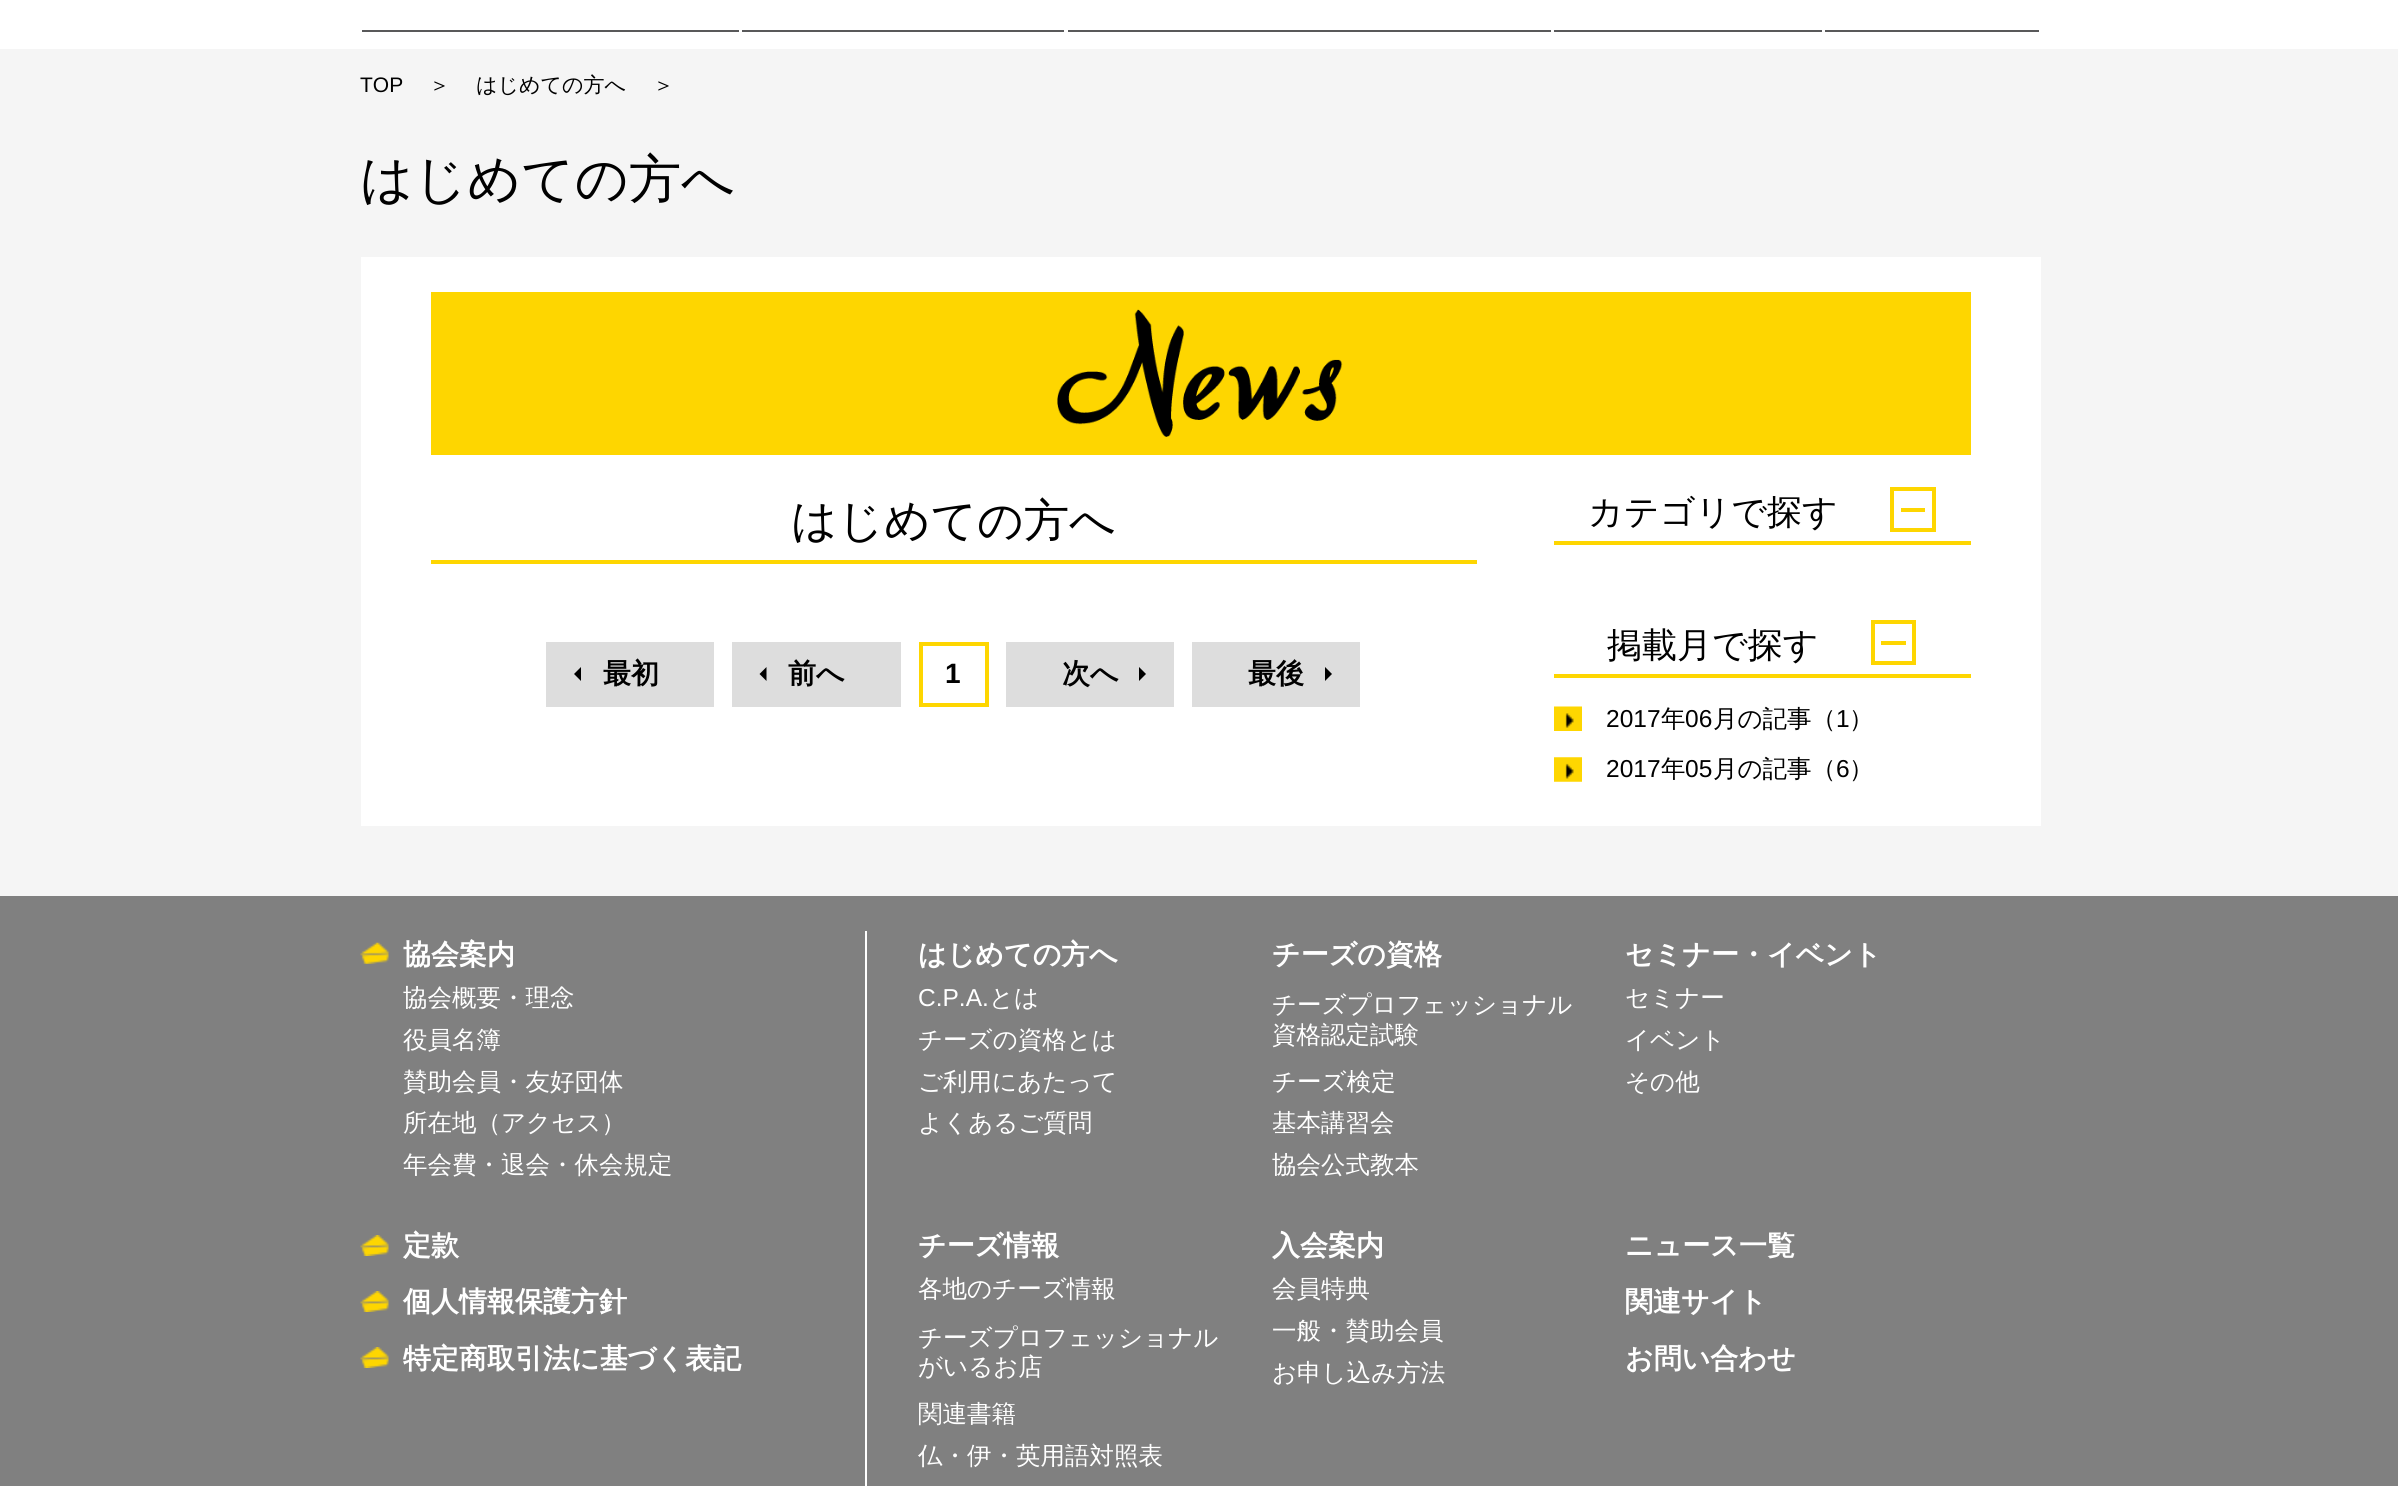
import math
import cairocffi as cairo

surface = cairo.ImageSurface(cairo.FORMAT_RGB24, 2398, 1486)
ctx = cairo.Context(surface)
options = cairo.FontOptions()
options.set_hint_metrics(cairo.HINT_METRICS_OFF)
options.set_hint_style(cairo.HINT_STYLE_NONE)
ctx.set_font_options(options)
ctx.set_miter_limit(4)


def rgb(r, g, b):
    ctx.set_source_rgb(r / 255, g / 255, b / 255)


def face(family, size, italic, bold):
    ctx.select_font_face(family, cairo.FONT_SLANT_ITALIC if italic else cairo.FONT_SLANT_NORMAL, cairo.FONT_WEIGHT_BOLD if bold else cairo.FONT_WEIGHT_NORMAL)
    ctx.set_font_size(size)


def label(x, y, s):
    ctx.move_to(x, y)
    ctx.show_text(s)


def rect(x, y, w, h):
    ctx.rectangle(x, y, w, h)
    ctx.fill()


def image(path, x, y, w, h):
    ctx.save()
    ctx.set_source_surface(cairo.ImageSurface.create_from_png(path), x, y)
    ctx.rectangle(x, y, w, h)
    ctx.fill()
    ctx.restore()


rgb(245, 245, 245)
ctx.paint()
rgb(255, 255, 255)
rect(0, 0, 2398, 49)
rgb(89, 89, 90)
rect(362, 30, 377, 2)
rect(742, 30, 322, 2)
rect(1068, 30, 483, 2)
rect(1554, 30, 268, 2)
rect(1825, 30, 214, 2)
face('Liberation Sans', 21, 0, 0)
rgb(0, 0, 0)
label(360, 92, 'TOP')
face('WenQuanYi Zen Hei Medium', 21, 0, 0)
label(429, 92, '＞')
label(476, 92, 'はじめての方へ')
label(653, 92, '＞')
face('WenQuanYi Zen Hei Medium', 52.5, 0, 0)
label(360, 197, 'はじめての方へ')
rgb(255, 255, 255)
rect(361, 257, 1680, 569)
rgb(254, 214, 0)
rect(431, 292, 1540, 163)
image('image0.png', 1057, 309, 286, 128)
rect(431, 560, 1046, 4)
face('WenQuanYi Zen Hei Medium', 45.5, 0, 0)
rgb(0, 0, 0)
label(791, 536, 'はじめての方へ')
rgb(221, 221, 221)
rect(546, 642, 168, 65)
rgb(0, 0, 0)
ctx.new_path()
ctx.move_to(581, 667)
ctx.line_to(581, 681)
ctx.line_to(574, 674)
ctx.close_path()
ctx.fill()
face('WenQuanYi Zen Hei', 28, 0, 1)
label(603, 683, '最初')
rgb(221, 221, 221)
rect(732, 642, 169, 65)
rgb(0, 0, 0)
ctx.new_path()
ctx.move_to(766.5, 667)
ctx.line_to(766.5, 681)
ctx.line_to(759.5, 674)
ctx.close_path()
ctx.fill()
label(788, 683, '前へ')
ctx.rectangle(921, 644, 66, 61)
rgb(254, 214, 0)
ctx.set_line_width(4)
ctx.stroke()
face('Liberation Sans', 28, 0, 1)
rgb(0, 0, 0)
label(945, 683, '1')
rgb(221, 221, 221)
rect(1006, 642, 168, 65)
face('WenQuanYi Zen Hei', 28, 0, 1)
rgb(0, 0, 0)
label(1062, 683, '次へ')
ctx.new_path()
ctx.move_to(1139, 681)
ctx.line_to(1139, 667)
ctx.line_to(1146, 674)
ctx.close_path()
ctx.fill()
rgb(221, 221, 221)
rect(1192, 642, 168, 65)
rgb(0, 0, 0)
label(1248, 683, '最後')
ctx.new_path()
ctx.move_to(1325, 681)
ctx.line_to(1325, 667)
ctx.line_to(1332, 674)
ctx.close_path()
ctx.fill()
rgb(254, 214, 0)
rect(1554, 541, 417, 4)
face('WenQuanYi Zen Hei Medium', 35, 0, 0)
rgb(0, 0, 0)
label(1588, 524, 'カテゴリで探す')
ctx.rectangle(1892, 489, 42, 41)
rgb(254, 214, 0)
ctx.stroke()
rect(1901, 508, 24, 4)
rect(1554, 674, 417, 4)
rgb(0, 0, 0)
label(1607, 657, '掲載月で探す')
ctx.rectangle(1873, 622, 41, 41)
rgb(254, 214, 0)
ctx.stroke()
rect(1881, 641, 25, 4)
image('image1.png', 1554, 706, 28, 25)
face('Liberation Sans', 24.5, 0, 0)
rgb(0, 0, 0)
label(1606, 727, '2017')
face('WenQuanYi Zen Hei Medium', 24.5, 0, 0)
label(1661, 727, '年')
face('Liberation Sans', 24.5, 0, 0)
label(1685, 727, '06')
face('WenQuanYi Zen Hei Medium', 24.5, 0, 0)
label(1713, 727, '月の記事（')
face('Liberation Sans', 24.5, 0, 0)
label(1836, 727, '1')
face('WenQuanYi Zen Hei Medium', 24.5, 0, 0)
label(1849, 727, '）')
image('image2.png', 1554, 757, 28, 25)
face('Liberation Sans', 24.5, 0, 0)
label(1606, 777, '2017')
face('WenQuanYi Zen Hei Medium', 24.5, 0, 0)
label(1661, 777, '年')
face('Liberation Sans', 24.5, 0, 0)
label(1685, 777, '05')
face('WenQuanYi Zen Hei Medium', 24.5, 0, 0)
label(1713, 777, '月の記事（')
face('Liberation Sans', 24.5, 0, 0)
label(1836, 777, '6')
face('WenQuanYi Zen Hei Medium', 24.5, 0, 0)
label(1849, 777, '）')
rgb(128, 128, 128)
rect(0, 896, 2398, 590)
image('image3.png', 360, 942, 29, 22)
face('WenQuanYi Zen Hei', 28, 0, 1)
rgb(255, 255, 255)
label(403, 964, '協会案内')
face('WenQuanYi Zen Hei Medium', 24.5, 0, 0)
label(403, 1006, '協会概要・理念')
label(403, 1048, '役員名簿')
label(403, 1090, '賛助会員・友好団体')
label(403, 1131, '所在地（アクセス）')
label(403, 1173, '年会費・退会・休会規定')
image('image4.png', 360, 1235, 29, 21)
face('WenQuanYi Zen Hei', 28, 0, 1)
label(403, 1255, '定款')
image('image4.png', 360, 1291, 29, 21)
label(403, 1311, '個人情報保護方針')
image('image4.png', 360, 1347, 29, 21)
label(403, 1368, '特定商取引法に基づく表記')
rect(865, 931, 2, 555)
label(918, 964, 'はじめての方へ')
face('Liberation Sans', 24.5, 0, 0)
label(918, 1006, 'C.P.A.')
face('WenQuanYi Zen Hei Medium', 24.5, 0, 0)
label(989, 1006, 'とは')
label(918, 1048, 'チーズの資格とは')
label(918, 1090, 'ご利用にあたって')
label(918, 1131, 'よくあるご質問')
face('WenQuanYi Zen Hei', 28, 0, 1)
label(1272, 964, 'チーズの資格')
face('WenQuanYi Zen Hei Medium', 24.5, 0, 0)
label(1272, 1013, 'チーズプロフェッショナル')
label(1272, 1043, '資格認定試験')
label(1272, 1090, 'チーズ検定')
label(1272, 1131, '基本講習会')
label(1272, 1173, '協会公式教本')
face('WenQuanYi Zen Hei', 28, 0, 1)
label(1625, 964, 'セミナー・イベント')
face('WenQuanYi Zen Hei Medium', 24.5, 0, 0)
label(1625, 1006, 'セミナー')
label(1625, 1048, 'イベント')
label(1625, 1090, 'その他')
face('WenQuanYi Zen Hei', 28, 0, 1)
label(918, 1255, 'チーズ情報')
face('WenQuanYi Zen Hei Medium', 24.5, 0, 0)
label(918, 1297, '各地のチーズ情報')
label(918, 1346, 'チーズプロフェッショナル')
label(918, 1375, 'がいるお店')
label(918, 1422, '関連書籍')
label(918, 1464, '仏・伊・英用語対照表')
face('WenQuanYi Zen Hei', 28, 0, 1)
label(1272, 1255, '入会案内')
face('WenQuanYi Zen Hei Medium', 24.5, 0, 0)
label(1272, 1297, '会員特典')
label(1272, 1339, '一般・賛助会員')
label(1272, 1381, 'お申し込み方法')
face('WenQuanYi Zen Hei', 28, 0, 1)
label(1625, 1255, 'ニュース一覧')
label(1625, 1311, '関連サイト')
label(1625, 1368, 'お問い合わせ')
surface.write_to_png('render.png')
